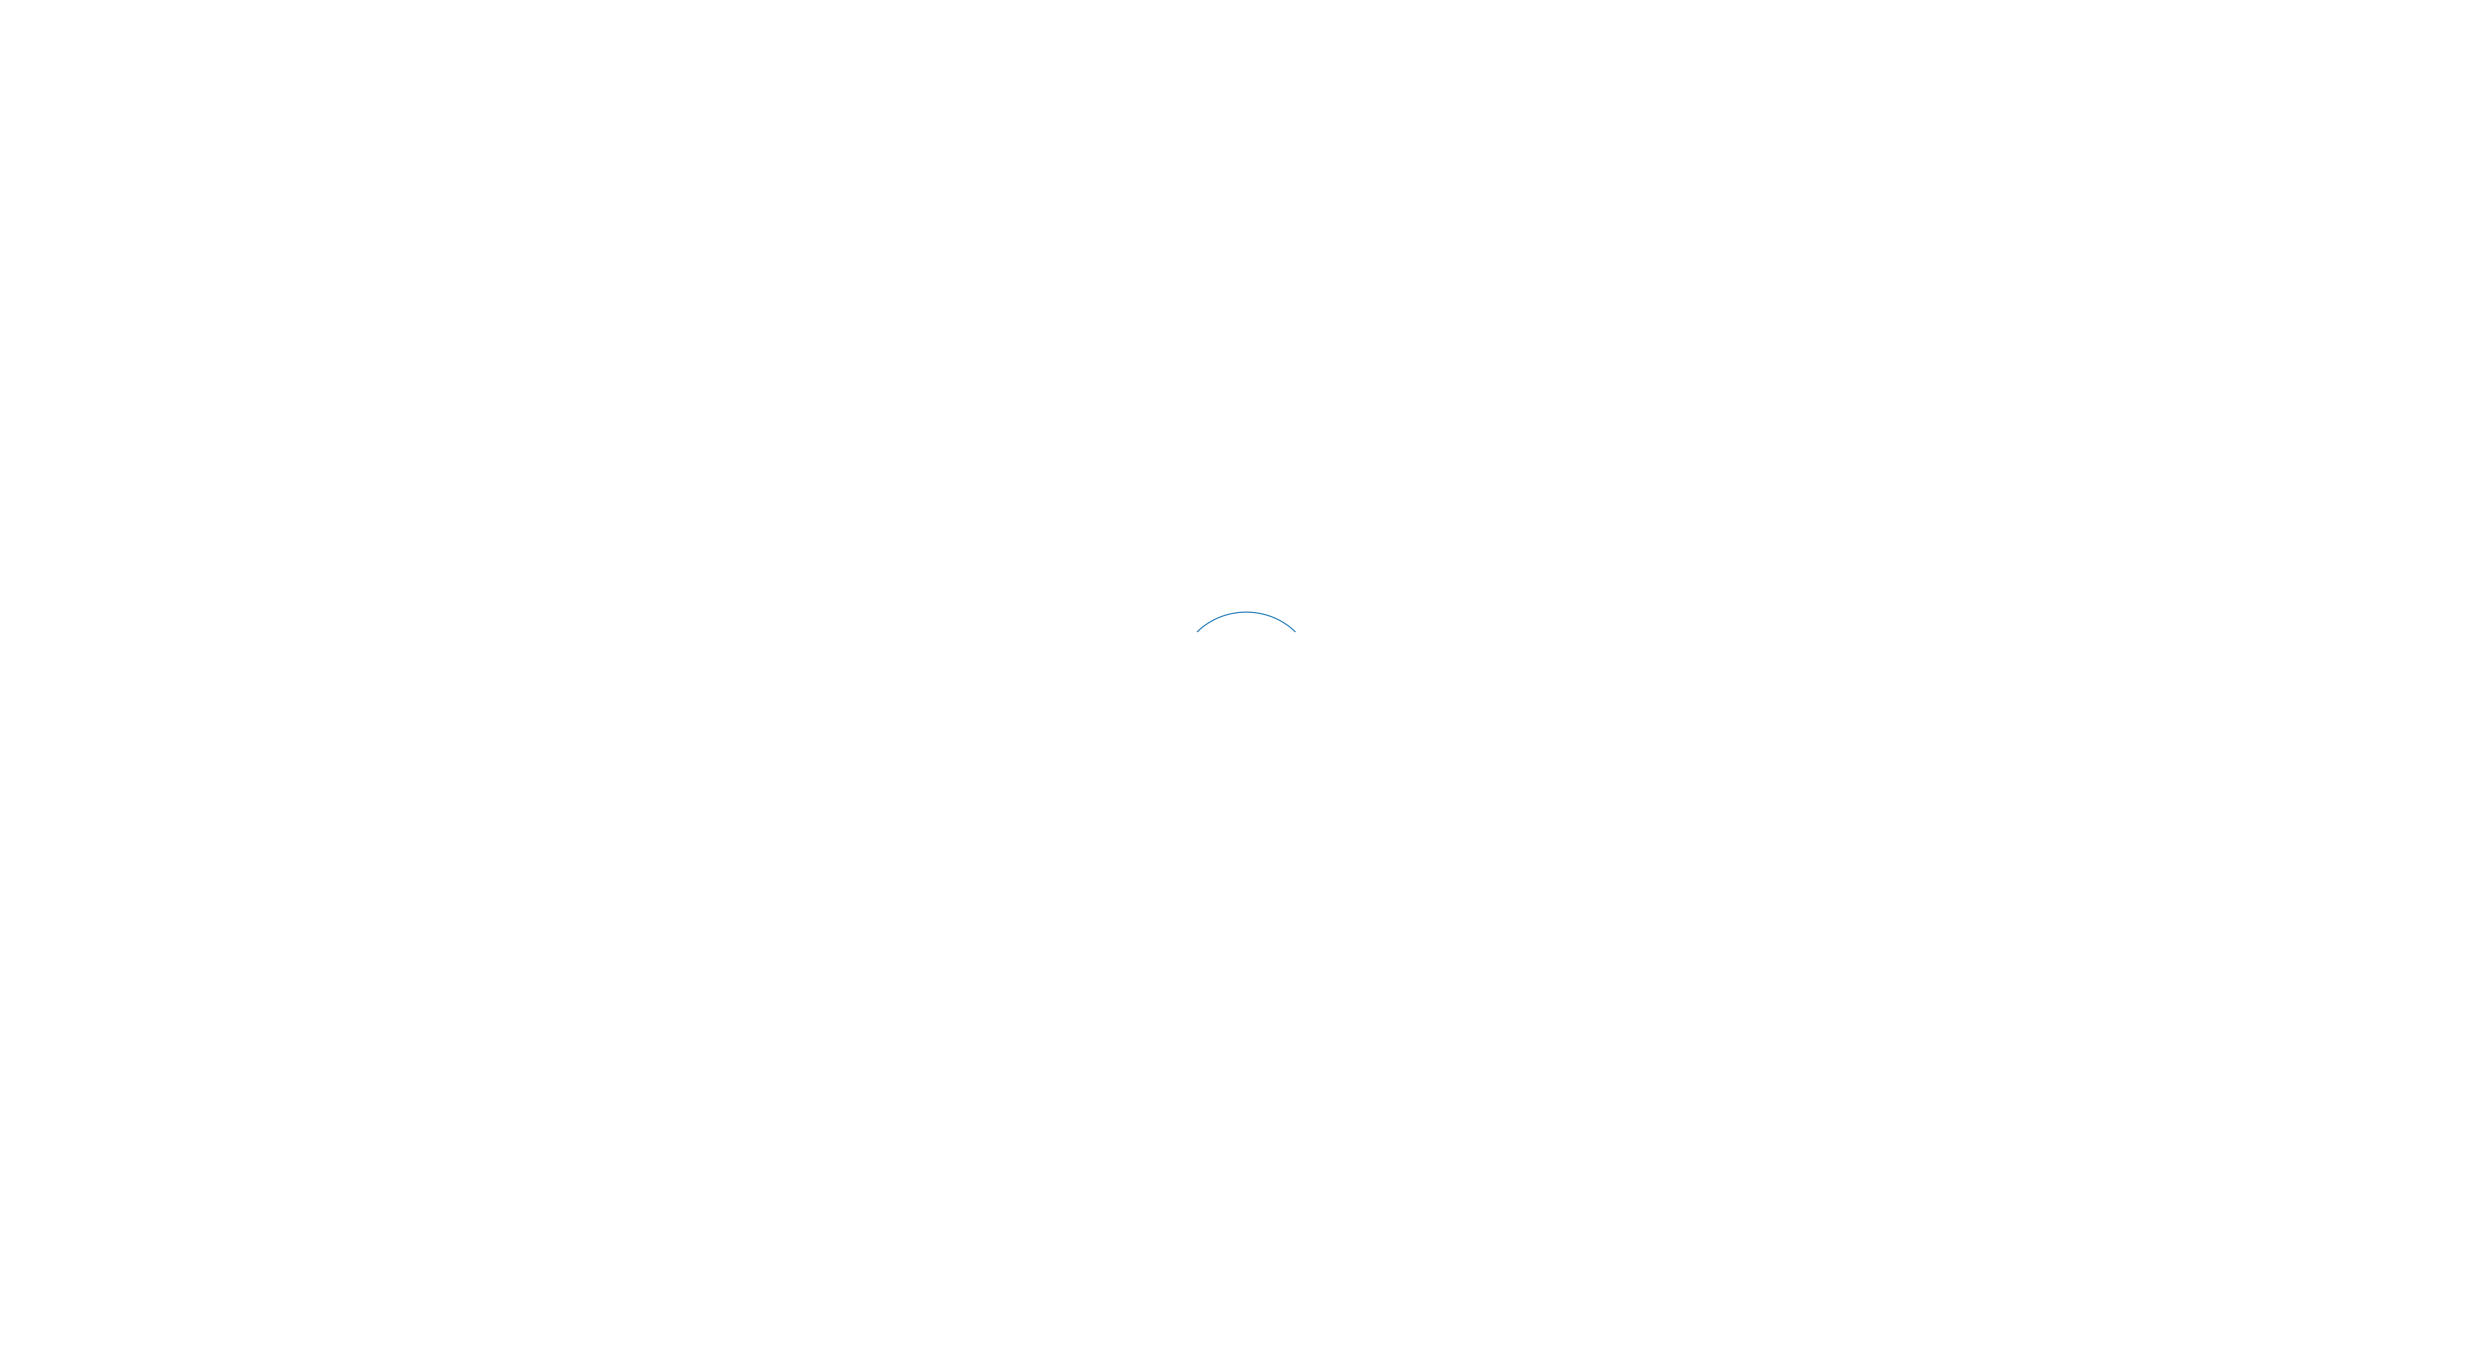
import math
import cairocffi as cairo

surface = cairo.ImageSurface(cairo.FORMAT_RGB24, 2491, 1362)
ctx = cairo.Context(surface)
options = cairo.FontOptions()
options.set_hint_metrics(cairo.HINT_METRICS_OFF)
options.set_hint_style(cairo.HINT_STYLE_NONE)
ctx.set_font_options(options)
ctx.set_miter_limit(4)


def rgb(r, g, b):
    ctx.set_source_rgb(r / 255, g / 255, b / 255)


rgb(255, 255, 255)
ctx.paint()
ctx.new_path()
ctx.move_to(1197, 632)
ctx.curve_to(1224, 605.5, 1268.5, 605.5, 1295.5, 632)
rgb(41, 128, 185)
ctx.set_line_width(1.2)
ctx.stroke()
surface.write_to_png('render.png')
